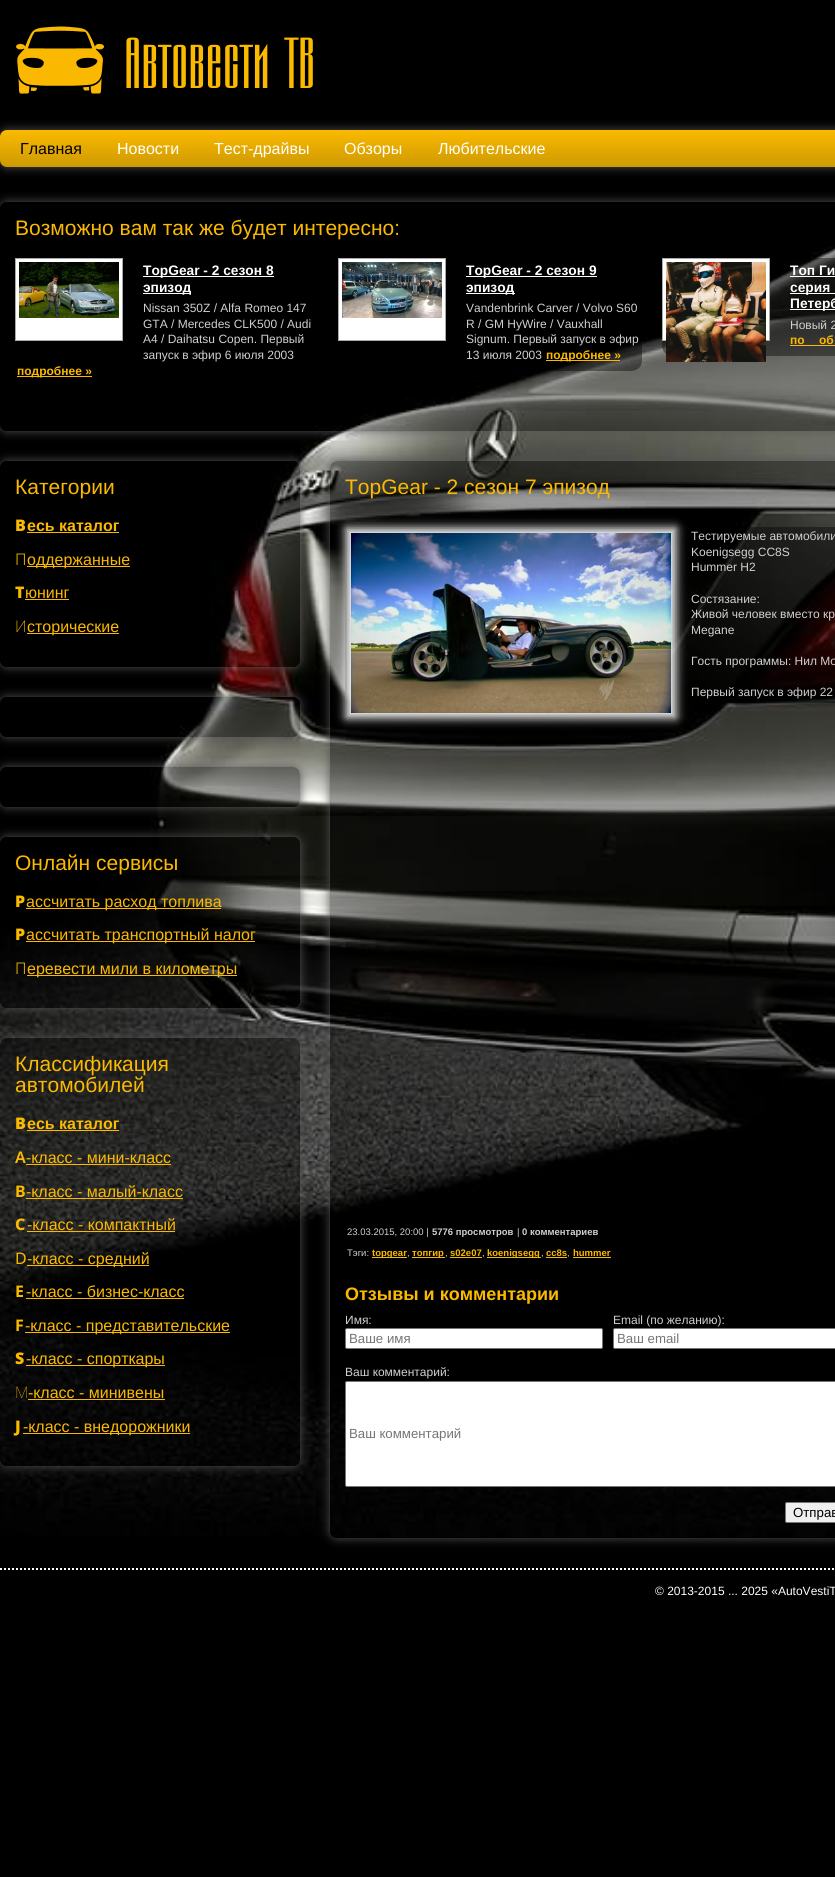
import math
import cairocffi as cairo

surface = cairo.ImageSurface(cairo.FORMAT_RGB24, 835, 1877)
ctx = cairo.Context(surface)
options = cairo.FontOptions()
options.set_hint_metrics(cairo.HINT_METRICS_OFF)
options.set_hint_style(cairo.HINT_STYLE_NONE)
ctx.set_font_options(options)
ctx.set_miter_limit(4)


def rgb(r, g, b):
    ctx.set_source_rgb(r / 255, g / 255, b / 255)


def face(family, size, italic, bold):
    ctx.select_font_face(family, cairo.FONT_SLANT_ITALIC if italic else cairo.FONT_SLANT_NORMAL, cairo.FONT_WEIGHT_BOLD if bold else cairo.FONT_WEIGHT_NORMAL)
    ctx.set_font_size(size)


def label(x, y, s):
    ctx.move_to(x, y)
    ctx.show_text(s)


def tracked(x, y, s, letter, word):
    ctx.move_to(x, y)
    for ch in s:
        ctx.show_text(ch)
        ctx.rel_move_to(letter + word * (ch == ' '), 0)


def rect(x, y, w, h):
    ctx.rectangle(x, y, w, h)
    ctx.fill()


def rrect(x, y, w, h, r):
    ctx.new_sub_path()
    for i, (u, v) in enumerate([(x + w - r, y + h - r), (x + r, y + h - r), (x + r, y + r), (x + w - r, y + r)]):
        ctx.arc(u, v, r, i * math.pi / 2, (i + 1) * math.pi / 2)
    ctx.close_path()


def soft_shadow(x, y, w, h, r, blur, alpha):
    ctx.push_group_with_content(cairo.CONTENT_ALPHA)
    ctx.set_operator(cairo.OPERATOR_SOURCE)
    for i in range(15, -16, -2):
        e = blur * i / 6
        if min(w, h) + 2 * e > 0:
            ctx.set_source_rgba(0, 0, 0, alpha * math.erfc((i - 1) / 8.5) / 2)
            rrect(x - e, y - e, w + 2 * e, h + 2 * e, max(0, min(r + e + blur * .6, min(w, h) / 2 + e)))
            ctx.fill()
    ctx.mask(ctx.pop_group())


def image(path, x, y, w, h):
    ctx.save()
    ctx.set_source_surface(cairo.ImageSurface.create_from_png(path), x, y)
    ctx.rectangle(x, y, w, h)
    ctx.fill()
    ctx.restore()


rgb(0, 0, 0)
ctx.paint()
image('image0.png', 0, 246, 835, 1291)
image('image1.png', 16, 26, 88, 68)
face('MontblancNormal', 72, 0, 0)
rgb(251, 186, 0)
tracked(125, 88, 'Автовести ТВ', 2, 0)
rgb(85, 85, 85)
soft_shadow(0, 130, 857, 37, 7, 5, 1)
gradient = cairo.LinearGradient(500, 130, 500, 167)
gradient.add_color_stop_rgba(0, 0.984, 0.729, 0, 1)
gradient.add_color_stop_rgba(1, 0.808, 0.6, 0.008, 1)
ctx.set_source(gradient)
rrect(0, 130, 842, 37, 7)
ctx.fill()
face('Liberation Sans', 16, 0, 0)
rgb(0, 0, 0)
label(20, 154, 'Главная')
rgb(255, 255, 255)
label(117, 154, 'Новости')
label(214, 154, 'Тест-драйвы')
label(344, 154, 'Обзоры')
label(438, 154, 'Любительские')
ctx.save()
ctx.set_fill_rule(cairo.FILL_RULE_EVEN_ODD)
ctx.new_path()
ctx.move_to(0, 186)
ctx.line_to(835, 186)
ctx.line_to(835, 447)
ctx.line_to(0, 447)
ctx.close_path()
ctx.move_to(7, 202)
ctx.line_to(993, 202)
ctx.curve_to(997, 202, 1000, 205, 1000, 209)
ctx.line_to(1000, 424)
ctx.curve_to(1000, 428, 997, 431, 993, 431)
ctx.line_to(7, 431)
ctx.curve_to(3, 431, 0, 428, 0, 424)
ctx.line_to(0, 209)
ctx.curve_to(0, 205, 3, 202, 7, 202)
ctx.close_path()
ctx.clip()
rgb(85, 85, 85)
soft_shadow(0, 202, 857, 229, 7, 5, 1)
ctx.restore()
ctx.set_source_rgba(0, 0, 0, 0.4)
rect(342, 248, 493, 183)
face('Liberation Sans', 21, 0, 0)
rgb(251, 186, 0)
label(15, 235, 'Возможно вам так же будет интересно:')
rgb(255, 255, 255)
ctx.rectangle(15.5, 258.5, 107, 82)
ctx.fill_preserve()
rgb(170, 170, 170)
ctx.set_line_width(1)
ctx.stroke()
image('image2.png', 19, 262, 100, 56)
rgb(255, 255, 255)
rect(143, 276, 131, 1)
face('Liberation Sans', 13.75, 0, 1)
label(143, 275, 'TopGear - 2 сезон 8')
rect(143, 293, 48, 1)
label(143, 292, 'эпизод')
face('Liberation Sans', 12, 0, 0)
rgb(208, 208, 208)
label(143, 312, 'Nissan 350Z / Alfa Romeo 147')
label(143, 328, 'GTA / Mercedes CLK500 / Audi')
label(143, 343, 'A4 / Daihatsu Copen. Первый')
label(143, 359, 'запуск в эфир 6 июля 2003')
rgb(250, 185, 0)
rect(17, 376, 75, 1)
face('Liberation Sans', 12, 0, 1)
rgb(251, 186, 0)
label(17, 375, 'подробнее »')
rgb(255, 255, 255)
ctx.rectangle(338.5, 258.5, 107, 82)
ctx.fill_preserve()
rgb(170, 170, 170)
ctx.stroke()
image('image3.png', 342, 262, 100, 56)
image('image4.png', 548, 342, 94, 29)
rgb(255, 255, 255)
rect(466, 276, 131, 1)
face('Liberation Sans', 13.75, 0, 1)
label(466, 275, 'TopGear - 2 сезон 9')
rect(466, 293, 49, 1)
label(466, 292, 'эпизод')
face('Liberation Sans', 12, 0, 0)
rgb(208, 208, 208)
label(466, 312, 'Vandenbrink Carver / Volvo S60')
label(466, 328, 'R / GM HyWire / Vauxhall')
label(466, 343, 'Signum. Первый запуск в эфир')
label(466, 359, '13 июля 2003')
rgb(250, 185, 0)
rect(546, 360, 74, 1)
face('Liberation Sans', 12, 0, 1)
rgb(251, 186, 0)
label(546, 359, 'подробнее »')
image('image6.png', 662, 258, 173, 98)
rgb(255, 255, 255)
ctx.rectangle(662.5, 258.5, 107, 82)
ctx.fill_preserve()
rgb(170, 170, 170)
ctx.stroke()
image('image5.png', 666, 262, 100, 100)
face('Liberation Sans', 13.75, 0, 1)
rgb(255, 255, 255)
label(790, 275, 'Топ Ги')
rect(790, 276, 45, 1)
rect(790, 293, 45, 1)
label(790, 292, 'серия')
rect(790, 309, 45, 1)
label(790, 308, 'Петерб')
face('Liberation Sans', 12, 0, 0)
rgb(208, 208, 208)
label(790, 329, 'Новый 2')
face('Liberation Sans', 12, 0, 1)
rgb(251, 186, 0)
label(790, 344, 'по')
rgb(250, 185, 0)
rect(790, 345, 45, 1)
rgb(251, 186, 0)
label(819, 344, 'об')
ctx.save()
ctx.set_fill_rule(cairo.FILL_RULE_EVEN_ODD)
ctx.new_path()
ctx.move_to(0, 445)
ctx.line_to(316, 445)
ctx.line_to(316, 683)
ctx.line_to(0, 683)
ctx.close_path()
ctx.move_to(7, 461)
ctx.line_to(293, 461)
ctx.curve_to(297, 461, 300, 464, 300, 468)
ctx.line_to(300, 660)
ctx.curve_to(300, 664, 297, 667, 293, 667)
ctx.line_to(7, 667)
ctx.curve_to(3, 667, 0, 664, 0, 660)
ctx.line_to(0, 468)
ctx.curve_to(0, 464, 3, 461, 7, 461)
ctx.close_path()
ctx.clip()
rgb(85, 85, 85)
soft_shadow(0, 461, 300, 206, 7, 5, 1)
ctx.restore()
image('image7.png', 218, 461, 82, 206)
face('Liberation Sans', 21, 0, 0)
label(15, 494, 'Категории')
face('Noto Sans Black', 16, 0, 0)
label(15, 531, 'В')
face('Liberation Sans', 16, 0, 1)
label(27, 531, 'есь каталог')
rgb(250, 185, 0)
rect(27, 532, 92, 1)
face('Noto Sans Light', 16, 0, 0)
rgb(251, 186, 0)
label(15, 565, 'П')
rgb(250, 185, 0)
rect(27, 566, 103, 1)
face('Liberation Sans', 16, 0, 0)
rgb(251, 186, 0)
label(27, 565, 'оддержанные')
face('Noto Sans Black', 16, 0, 0)
label(15, 598, 'Т')
face('Liberation Sans', 16, 0, 0)
label(25, 598, 'юнинг')
rgb(250, 185, 0)
rect(25, 599, 44, 1)
face('Noto Sans ExtraLight', 16, 0, 0)
rgb(251, 186, 0)
label(15, 632, 'И')
rgb(250, 185, 0)
rect(27, 633, 92, 1)
face('Liberation Sans', 16, 0, 0)
rgb(251, 186, 0)
label(27, 632, 'сторические')
ctx.save()
ctx.set_fill_rule(cairo.FILL_RULE_EVEN_ODD)
ctx.new_path()
ctx.move_to(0, 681)
ctx.line_to(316, 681)
ctx.line_to(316, 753)
ctx.line_to(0, 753)
ctx.close_path()
ctx.move_to(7, 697)
ctx.line_to(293, 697)
ctx.curve_to(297, 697, 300, 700, 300, 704)
ctx.line_to(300, 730)
ctx.curve_to(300, 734, 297, 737, 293, 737)
ctx.line_to(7, 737)
ctx.curve_to(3, 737, 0, 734, 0, 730)
ctx.line_to(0, 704)
ctx.curve_to(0, 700, 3, 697, 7, 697)
ctx.close_path()
ctx.clip()
rgb(85, 85, 85)
soft_shadow(0, 697, 300, 40, 7, 5, 1)
ctx.restore()
image('image8.png', 181, 697, 119, 40)
ctx.save()
ctx.set_fill_rule(cairo.FILL_RULE_EVEN_ODD)
ctx.new_path()
ctx.move_to(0, 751)
ctx.line_to(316, 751)
ctx.line_to(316, 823)
ctx.line_to(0, 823)
ctx.close_path()
ctx.move_to(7, 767)
ctx.line_to(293, 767)
ctx.curve_to(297, 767, 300, 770, 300, 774)
ctx.line_to(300, 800)
ctx.curve_to(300, 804, 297, 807, 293, 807)
ctx.line_to(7, 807)
ctx.curve_to(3, 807, 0, 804, 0, 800)
ctx.line_to(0, 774)
ctx.curve_to(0, 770, 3, 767, 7, 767)
ctx.close_path()
ctx.clip()
rgb(85, 85, 85)
soft_shadow(0, 767, 300, 40, 7, 5, 1)
ctx.restore()
image('image9.png', 156, 767, 144, 40)
ctx.save()
ctx.set_fill_rule(cairo.FILL_RULE_EVEN_ODD)
ctx.new_path()
ctx.move_to(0, 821)
ctx.line_to(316, 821)
ctx.line_to(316, 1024)
ctx.line_to(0, 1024)
ctx.close_path()
ctx.move_to(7, 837)
ctx.line_to(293, 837)
ctx.curve_to(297, 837, 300, 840, 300, 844)
ctx.line_to(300, 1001)
ctx.curve_to(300, 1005, 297, 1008, 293, 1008)
ctx.line_to(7, 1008)
ctx.curve_to(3, 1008, 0, 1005, 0, 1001)
ctx.line_to(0, 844)
ctx.curve_to(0, 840, 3, 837, 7, 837)
ctx.close_path()
ctx.clip()
rgb(85, 85, 85)
soft_shadow(0, 837, 300, 171, 7, 5, 1)
ctx.restore()
image('image10.png', 0, 837, 300, 171)
face('Liberation Sans', 21, 0, 0)
label(15, 870, 'Онлайн сервисы')
face('Noto Sans Black', 16, 0, 0)
label(15, 907, 'Р')
rgb(250, 185, 0)
rect(26, 908, 195, 1)
face('Liberation Sans', 16, 0, 0)
rgb(251, 186, 0)
label(26, 907, 'ассчитать расход топлива')
face('Noto Sans Black', 16, 0, 0)
label(15, 940, 'Р')
rgb(250, 185, 0)
rect(26, 941, 229, 1)
face('Liberation Sans', 16, 0, 0)
rgb(251, 186, 0)
label(26, 940, 'ассчитать транспортный налог')
face('Noto Sans Light', 16, 0, 0)
label(15, 974, 'П')
rgb(250, 185, 0)
rect(27, 975, 210, 1)
face('Liberation Sans', 16, 0, 0)
rgb(251, 186, 0)
label(27, 974, 'еревести мили в километры')
ctx.save()
ctx.set_fill_rule(cairo.FILL_RULE_EVEN_ODD)
ctx.new_path()
ctx.move_to(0, 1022)
ctx.line_to(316, 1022)
ctx.line_to(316, 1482)
ctx.line_to(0, 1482)
ctx.close_path()
ctx.move_to(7, 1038)
ctx.line_to(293, 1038)
ctx.curve_to(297, 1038, 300, 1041, 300, 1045)
ctx.line_to(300, 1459)
ctx.curve_to(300, 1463, 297, 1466, 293, 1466)
ctx.line_to(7, 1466)
ctx.curve_to(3, 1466, 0, 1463, 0, 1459)
ctx.line_to(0, 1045)
ctx.curve_to(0, 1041, 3, 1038, 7, 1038)
ctx.close_path()
ctx.clip()
rgb(85, 85, 85)
soft_shadow(0, 1038, 300, 428, 7, 5, 1)
ctx.restore()
image('image11.png', 0, 1038, 300, 428)
face('Liberation Sans', 21, 0, 0)
label(15, 1071, 'Классификация')
label(15, 1092, 'автомобилей')
face('Noto Sans Black', 16, 0, 0)
label(15, 1129, 'В')
face('Liberation Sans', 16, 0, 1)
label(27, 1129, 'есь каталог')
rgb(250, 185, 0)
rect(27, 1130, 92, 1)
face('Noto Sans SemiBold', 16, 0, 0)
rgb(251, 186, 0)
label(15, 1163, 'A')
face('Liberation Sans', 16, 0, 0)
label(26, 1163, '-класс - мини-класс')
rgb(250, 185, 0)
rect(26, 1164, 145, 1)
face('Noto Sans', 16, 0, 1)
rgb(251, 186, 0)
label(15, 1197, 'B')
face('Liberation Sans', 16, 0, 0)
label(26, 1197, '-класс - малый-класс')
rgb(250, 185, 0)
rect(26, 1198, 157, 1)
face('Noto Sans ExtraBold', 16, 0, 0)
rgb(251, 186, 0)
label(15, 1230, 'C')
face('Liberation Sans', 16, 0, 0)
label(27, 1230, '-класс - компактный')
rgb(250, 185, 0)
rect(27, 1231, 148, 1)
face('Noto Sans', 16, 0, 0)
rgb(251, 186, 0)
label(15, 1264, 'D')
rgb(250, 185, 0)
rect(27, 1265, 122, 1)
face('Liberation Sans', 16, 0, 0)
rgb(251, 186, 0)
label(27, 1264, '-класс - средний')
face('Noto Sans', 16, 0, 1)
label(15, 1297, 'E')
face('Liberation Sans', 16, 0, 0)
label(26, 1297, '-класс - бизнес-класс')
rgb(250, 185, 0)
rect(26, 1298, 158, 1)
face('Noto Sans', 16, 0, 1)
rgb(251, 186, 0)
label(15, 1331, 'F')
rgb(250, 185, 0)
rect(25, 1332, 205, 1)
face('Liberation Sans', 16, 0, 0)
rgb(251, 186, 0)
label(25, 1331, '-класс - представительские')
face('Noto Sans Black', 16, 0, 0)
label(15, 1364, 'S')
rgb(250, 185, 0)
rect(26, 1365, 139, 1)
face('Liberation Sans', 16, 0, 0)
rgb(251, 186, 0)
label(26, 1364, '-класс - cпорткары')
face('Noto Sans Thin', 16, 0, 0)
label(15, 1398, 'M')
face('Liberation Sans', 16, 0, 0)
label(28, 1398, '-класс - минивены')
rgb(250, 185, 0)
rect(28, 1399, 137, 1)
face('Noto Sans Black', 16, 0, 0)
rgb(251, 186, 0)
label(15, 1432, 'J')
rgb(250, 185, 0)
rect(23, 1433, 167, 1)
face('Liberation Sans', 16, 0, 0)
rgb(251, 186, 0)
label(23, 1432, '-класс - внедорожники')
ctx.save()
ctx.set_fill_rule(cairo.FILL_RULE_EVEN_ODD)
ctx.new_path()
ctx.move_to(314, 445)
ctx.line_to(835, 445)
ctx.line_to(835, 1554)
ctx.line_to(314, 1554)
ctx.close_path()
ctx.move_to(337, 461)
ctx.line_to(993, 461)
ctx.curve_to(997, 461, 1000, 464, 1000, 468)
ctx.line_to(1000, 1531)
ctx.curve_to(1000, 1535, 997, 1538, 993, 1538)
ctx.line_to(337, 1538)
ctx.curve_to(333, 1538, 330, 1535, 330, 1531)
ctx.line_to(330, 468)
ctx.curve_to(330, 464, 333, 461, 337, 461)
ctx.close_path()
ctx.clip()
rgb(85, 85, 85)
soft_shadow(330, 461, 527, 1077, 7, 5, 1)
ctx.restore()
image('image12.png', 330, 461, 505, 1053)
face('Liberation Sans', 21, 0, 0)
label(345, 494, 'TopGear - 2 сезон 7 эпизод')
image('image14.png', 345, 527, 490, 176)
rgb(255, 255, 255)
soft_shadow(346, 528, 330, 190, 0, 5, 1)
image('image13.png', 351, 533, 320, 180)
face('Liberation Sans', 12, 0, 0)
rgb(208, 208, 208)
label(691, 540, 'Тестируемые автомобили')
label(691, 556, 'Koenigsegg CC8S')
label(691, 571, 'Hummer H2')
label(691, 603, 'Состязание:')
label(691, 618, 'Живой человек вместо кр')
label(691, 634, 'Megane')
label(691, 665, 'Гость программы: Нил Мо')
label(691, 696, 'Первый запуск в эфир 22')
face('Liberation Sans', 9.5, 0, 0)
label(347, 1235, '23.03.2015, 20:00 |')
face('Liberation Sans', 9.5, 0, 1)
label(432, 1235, '5776 просмотров')
face('Liberation Sans', 9.5, 0, 0)
label(517, 1235, '|')
face('Liberation Sans', 9.5, 0, 1)
label(522, 1235, '0 комментариев')
face('Liberation Sans', 9.5, 0, 0)
label(347, 1256, 'Тэги:')
rgb(250, 185, 0)
rect(372, 1257, 35, 1)
face('Liberation Sans', 9.5, 0, 1)
rgb(251, 186, 0)
label(372, 1256, 'topgear')
face('Liberation Sans', 9.5, 0, 0)
rgb(208, 208, 208)
label(407, 1256, ',')
rgb(250, 185, 0)
rect(412, 1257, 33, 1)
face('Liberation Sans', 9.5, 0, 1)
rgb(251, 186, 0)
label(412, 1256, 'топгир')
face('Liberation Sans', 9.5, 0, 0)
rgb(208, 208, 208)
label(445, 1256, ',')
face('Liberation Sans', 9.5, 0, 1)
rgb(251, 186, 0)
label(450, 1256, 's02e07')
face('Liberation Sans', 9.5, 0, 0)
rgb(208, 208, 208)
label(482, 1256, ',')
rgb(250, 185, 0)
rect(450, 1257, 32, 1)
rect(487, 1257, 54, 1)
face('Liberation Sans', 9.5, 0, 1)
rgb(251, 186, 0)
label(487, 1256, 'koenigsegg')
face('Liberation Sans', 9.5, 0, 0)
rgb(208, 208, 208)
label(541, 1256, ',')
face('Liberation Sans', 9.5, 0, 1)
rgb(251, 186, 0)
label(546, 1256, 'cc8s')
face('Liberation Sans', 9.5, 0, 0)
rgb(208, 208, 208)
label(567, 1256, ',')
rgb(250, 185, 0)
rect(546, 1257, 21, 1)
rect(573, 1257, 38, 1)
face('Liberation Sans', 9.5, 0, 1)
rgb(251, 186, 0)
label(573, 1256, 'hummer')
face('Liberation Sans', 18, 0, 1)
label(345, 1300, 'Отзывы и комментарии')
face('Liberation Sans', 12, 0, 0)
rgb(208, 208, 208)
label(345, 1324, 'Имя:')
rgb(255, 255, 255)
rrect(345.5, 1328.5, 257, 20, 1.5)
ctx.fill_preserve()
rgb(118, 118, 118)
ctx.stroke()
face('Liberation Sans', 13.25, 0, 0)
rgb(117, 117, 117)
label(349, 1343, 'Ваше имя')
face('Liberation Sans', 12, 0, 0)
rgb(208, 208, 208)
label(613, 1324, 'Email (по желанию):')
rgb(255, 255, 255)
rrect(613.5, 1328.5, 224, 20, 1.5)
ctx.fill_preserve()
rgb(118, 118, 118)
ctx.stroke()
face('Liberation Sans', 13.25, 0, 0)
rgb(117, 117, 117)
label(617, 1343, 'Ваш email')
face('Liberation Sans', 12, 0, 0)
rgb(208, 208, 208)
label(345, 1376, 'Ваш комментарий:')
rgb(255, 255, 255)
rrect(345.5, 1381.5, 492, 105, 1.5)
ctx.fill_preserve()
rgb(118, 118, 118)
ctx.stroke()
face('Liberation Sans', 13.25, 0, 0)
rgb(117, 117, 117)
label(349, 1438, 'Ваш комментарий')
rgb(239, 239, 239)
rrect(785.5, 1502.5, 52, 20, 1.5)
ctx.fill_preserve()
rgb(118, 118, 118)
ctx.stroke()
rgb(0, 0, 0)
label(793, 1517, 'Отправ')
ctx.new_path()
ctx.move_to(0, 1569)
ctx.line_to(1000, 1569)
rgb(255, 255, 255)
ctx.set_line_width(2)
ctx.set_dash([2, 2])
ctx.stroke()
face('Liberation Sans', 12, 0, 0)
label(655, 1595, '© 2013-2015 ... 2025 «AutoVestiT')
surface.write_to_png('render.png')
